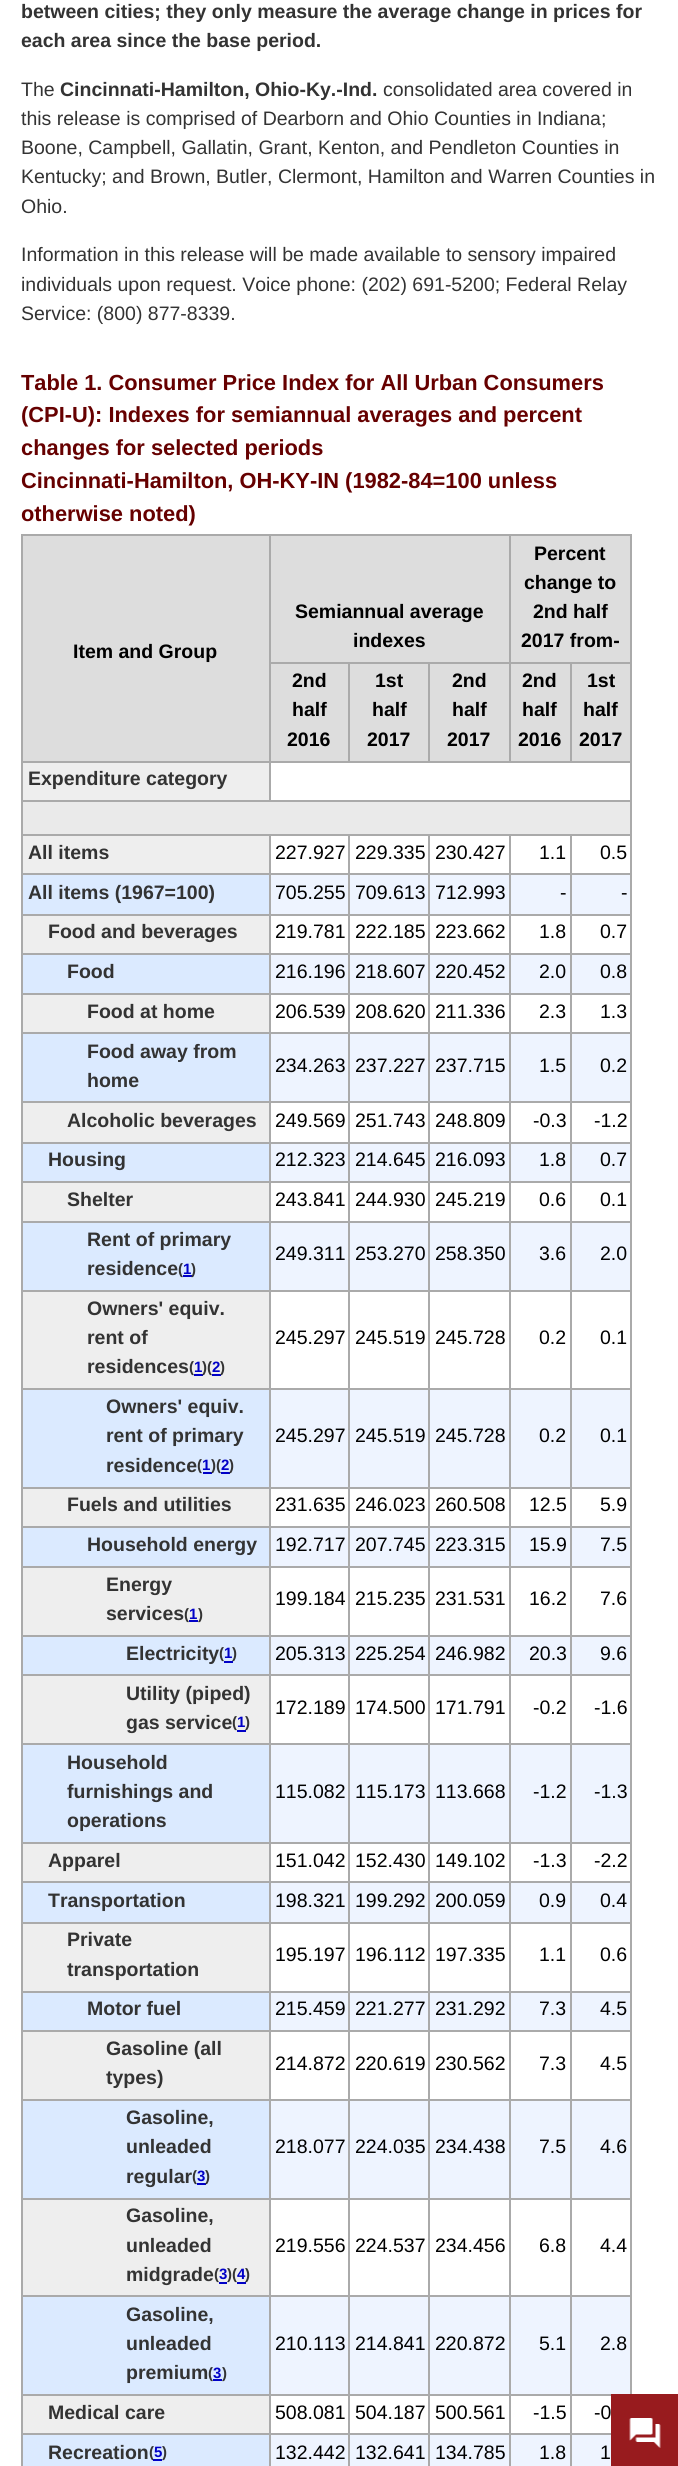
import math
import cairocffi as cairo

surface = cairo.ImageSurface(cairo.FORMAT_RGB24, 678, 2466)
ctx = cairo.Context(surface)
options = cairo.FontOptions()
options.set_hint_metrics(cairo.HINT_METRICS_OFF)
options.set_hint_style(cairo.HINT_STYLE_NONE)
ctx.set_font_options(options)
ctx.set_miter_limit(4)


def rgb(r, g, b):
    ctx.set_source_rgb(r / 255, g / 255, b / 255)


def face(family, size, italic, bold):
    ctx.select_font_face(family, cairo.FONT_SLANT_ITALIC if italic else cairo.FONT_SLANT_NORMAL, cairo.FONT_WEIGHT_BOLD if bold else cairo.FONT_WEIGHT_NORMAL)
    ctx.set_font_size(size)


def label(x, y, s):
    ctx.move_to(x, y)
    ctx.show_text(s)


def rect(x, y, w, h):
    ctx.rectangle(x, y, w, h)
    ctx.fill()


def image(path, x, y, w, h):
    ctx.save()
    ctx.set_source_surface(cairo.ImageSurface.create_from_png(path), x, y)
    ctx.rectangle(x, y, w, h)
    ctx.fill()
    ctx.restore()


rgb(255, 255, 255)
ctx.paint()
face('Liberation Sans', 19.5, 0, 1)
rgb(51, 51, 51)
label(21, 18, 'between cities; they only measure the average change in prices for')
label(21, 47, 'each area since the base period.')
face('Liberation Sans', 19.5, 0, 0)
label(21, 96, 'The')
face('Liberation Sans', 19.5, 0, 1)
label(60, 96, 'Cincinnati-Hamilton, Ohio-Ky.-Ind.')
face('Liberation Sans', 19.5, 0, 0)
label(383, 96, 'consolidated area covered in')
label(21, 125, 'this release is comprised of Dearborn and Ohio Counties in Indiana;')
label(21, 154, 'Boone, Campbell, Gallatin, Grant, Kenton, and Pendleton Counties in')
label(21, 183, 'Kentucky; and Brown, Butler, Clermont, Hamilton and Warren Counties in')
label(21, 213, 'Ohio.')
label(21, 261, 'Information in this release will be made available to sensory impaired')
label(21, 291, 'individuals upon request. Voice phone: (202) 691-5200; Federal Relay')
label(21, 320, 'Service: (800) 877-8339.')
face('Liberation Sans', 21.85, 0, 1)
rgb(102, 0, 0)
label(21, 390, 'Table 1. Consumer Price Index for All Urban Consumers')
label(21, 422, '(CPI-U): Indexes for semiannual averages and percent')
label(21, 455, 'changes for selected periods')
label(21, 488, 'Cincinnati-Hamilton, OH-KY-IN (1982-84=100 unless')
label(21, 521, 'otherwise noted)')
rgb(221, 221, 221)
rect(271, 536, 238, 126)
rgb(170, 170, 170)
rect(509, 534, 123, 2)
rect(570, 662, 62, 2)
rect(269, 761, 363, 2)
rect(570, 662, 2, 100)
rect(509, 662, 63, 2)
rect(509, 662, 2, 100)
rect(428, 662, 82, 2)
rect(509, 534, 2, 129)
rect(269, 534, 241, 2)
rect(428, 662, 2, 100)
rect(348, 662, 81, 2)
rect(348, 662, 2, 100)
rect(269, 662, 81, 2)
rect(21, 800, 611, 2)
rect(269, 761, 2, 40)
rect(21, 761, 249, 2)
rect(269, 662, 2, 100)
rect(269, 534, 2, 129)
face('Liberation Sans', 19.5, 0, 1)
rgb(0, 0, 0)
label(295, 618, 'Semiannual average')
label(353, 647, 'indexes')
rgb(221, 221, 221)
rect(511, 536, 119, 126)
rgb(170, 170, 170)
rect(570, 834, 62, 2)
rect(570, 873, 62, 2)
rect(570, 914, 62, 2)
rect(570, 953, 62, 2)
rect(570, 993, 62, 2)
rect(570, 1032, 62, 2)
rect(570, 1101, 62, 2)
rect(570, 1142, 62, 2)
rect(570, 1181, 62, 2)
rect(570, 1221, 62, 2)
rect(570, 1290, 62, 2)
rect(570, 1388, 62, 2)
rect(570, 1487, 62, 2)
rect(570, 1526, 62, 2)
rect(570, 1566, 62, 2)
rect(570, 1635, 62, 2)
rect(570, 1674, 62, 2)
rect(570, 1743, 62, 2)
rect(570, 1842, 62, 2)
rect(570, 1881, 62, 2)
rect(570, 1922, 62, 2)
rect(570, 1991, 62, 2)
rect(570, 2030, 62, 2)
rect(570, 2099, 62, 2)
rect(570, 2198, 62, 2)
rect(570, 2295, 62, 2)
rect(630, 2295, 2, 101)
rect(630, 2198, 2, 99)
rect(630, 2099, 2, 100)
rect(630, 2030, 2, 70)
rect(630, 1991, 2, 40)
rect(630, 1922, 2, 70)
rect(630, 1881, 2, 42)
rect(630, 1842, 2, 41)
rect(630, 1743, 2, 101)
rect(630, 1674, 2, 71)
rect(630, 1635, 2, 41)
rect(630, 1566, 2, 71)
rect(630, 1526, 2, 42)
rect(630, 1487, 2, 40)
rect(630, 1388, 2, 100)
rect(630, 1290, 2, 99)
rect(630, 1221, 2, 71)
rect(630, 1181, 2, 42)
rect(630, 1142, 2, 40)
rect(630, 1101, 2, 42)
rect(630, 1032, 2, 71)
rect(630, 993, 2, 41)
rect(630, 953, 2, 42)
rect(630, 914, 2, 40)
rect(630, 873, 2, 42)
rect(630, 834, 2, 41)
rect(630, 800, 2, 36)
rect(630, 761, 2, 40)
rect(630, 662, 2, 100)
rect(630, 534, 2, 129)
rgb(0, 0, 0)
label(534, 560, 'Percent')
label(524, 589, 'change to')
label(533, 618, '2nd half')
label(521, 647, '2017 from-')
rgb(221, 221, 221)
rect(23, 536, 246, 225)
rgb(170, 170, 170)
rect(21, 534, 249, 2)
rect(570, 2394, 41, 2)
rect(570, 2433, 41, 2)
rect(570, 2433, 2, 33)
rect(509, 2433, 63, 2)
rect(570, 2394, 2, 41)
rect(509, 2394, 63, 2)
rect(570, 2295, 2, 101)
rect(509, 2295, 63, 2)
rect(570, 2198, 2, 99)
rect(509, 2198, 63, 2)
rect(570, 2099, 2, 100)
rect(509, 2099, 63, 2)
rect(570, 2030, 2, 70)
rect(509, 2030, 63, 2)
rect(570, 1991, 2, 40)
rect(509, 1991, 63, 2)
rect(570, 1922, 2, 70)
rect(509, 1922, 63, 2)
rect(570, 1881, 2, 42)
rect(509, 1881, 63, 2)
rect(570, 1842, 2, 41)
rect(509, 1842, 63, 2)
rect(570, 1743, 2, 101)
rect(509, 1743, 63, 2)
rect(570, 1674, 2, 71)
rect(509, 1674, 63, 2)
rect(570, 1635, 2, 41)
rect(509, 1635, 63, 2)
rect(570, 1566, 2, 71)
rect(509, 1566, 63, 2)
rect(570, 1526, 2, 42)
rect(509, 1526, 63, 2)
rect(570, 1487, 2, 40)
rect(509, 1487, 63, 2)
rect(570, 1388, 2, 100)
rect(509, 1388, 63, 2)
rect(570, 1290, 2, 99)
rect(509, 1290, 63, 2)
rect(570, 1221, 2, 71)
rect(509, 1221, 63, 2)
rect(570, 1181, 2, 42)
rect(509, 1181, 63, 2)
rect(570, 1142, 2, 40)
rect(509, 1142, 63, 2)
rect(570, 1101, 2, 42)
rect(509, 1101, 63, 2)
rect(570, 1032, 2, 71)
rect(509, 1032, 63, 2)
rect(570, 993, 2, 41)
rect(509, 993, 63, 2)
rect(570, 953, 2, 42)
rect(509, 953, 63, 2)
rect(570, 914, 2, 40)
rect(509, 914, 63, 2)
rect(570, 873, 2, 42)
rect(509, 873, 63, 2)
rect(570, 834, 2, 41)
rect(509, 834, 63, 2)
rect(509, 2433, 2, 33)
rect(428, 2433, 82, 2)
rect(509, 2394, 2, 41)
rect(428, 2394, 82, 2)
rect(509, 2295, 2, 101)
rect(428, 2295, 82, 2)
rect(509, 2198, 2, 99)
rect(428, 2198, 82, 2)
rect(509, 2099, 2, 100)
rect(428, 2099, 82, 2)
rect(509, 2030, 2, 70)
rect(428, 2030, 82, 2)
rect(509, 1991, 2, 40)
rect(428, 1991, 82, 2)
rect(509, 1922, 2, 70)
rect(428, 1922, 82, 2)
rect(509, 1881, 2, 42)
rect(428, 1881, 82, 2)
rect(509, 1842, 2, 41)
rect(428, 1842, 82, 2)
rect(509, 1743, 2, 101)
rect(428, 1743, 82, 2)
rect(509, 1674, 2, 71)
rect(428, 1674, 82, 2)
rect(509, 1635, 2, 41)
rect(428, 1635, 82, 2)
rect(509, 1566, 2, 71)
rect(428, 1566, 82, 2)
rect(509, 1526, 2, 42)
rect(428, 1526, 82, 2)
rect(509, 1487, 2, 40)
rect(428, 1487, 82, 2)
rect(509, 1388, 2, 100)
rect(428, 1388, 82, 2)
rect(509, 1290, 2, 99)
rect(428, 1290, 82, 2)
rect(509, 1221, 2, 71)
rect(428, 1221, 82, 2)
rect(509, 1181, 2, 42)
rect(428, 1181, 82, 2)
rect(509, 1142, 2, 40)
rect(428, 1142, 82, 2)
rect(509, 1101, 2, 42)
rect(428, 1101, 82, 2)
rect(509, 1032, 2, 71)
rect(428, 1032, 82, 2)
rect(509, 993, 2, 41)
rect(428, 993, 82, 2)
rect(509, 953, 2, 42)
rect(428, 953, 82, 2)
rect(509, 914, 2, 40)
rect(428, 914, 82, 2)
rect(509, 873, 2, 42)
rect(428, 873, 82, 2)
rect(509, 834, 2, 41)
rect(428, 834, 82, 2)
rect(428, 2433, 2, 33)
rect(348, 2433, 81, 2)
rect(428, 2394, 2, 41)
rect(348, 2394, 81, 2)
rect(428, 2295, 2, 101)
rect(348, 2295, 81, 2)
rect(428, 2198, 2, 99)
rect(348, 2198, 81, 2)
rect(428, 2099, 2, 100)
rect(348, 2099, 81, 2)
rect(428, 2030, 2, 70)
rect(348, 2030, 81, 2)
rect(428, 1991, 2, 40)
rect(348, 1991, 81, 2)
rect(428, 1922, 2, 70)
rect(348, 1922, 81, 2)
rect(428, 1881, 2, 42)
rect(348, 1881, 81, 2)
rect(428, 1842, 2, 41)
rect(348, 1842, 81, 2)
rect(428, 1743, 2, 101)
rect(348, 1743, 81, 2)
rect(428, 1674, 2, 71)
rect(348, 1674, 81, 2)
rect(428, 1635, 2, 41)
rect(348, 1635, 81, 2)
rect(428, 1566, 2, 71)
rect(348, 1566, 81, 2)
rect(428, 1526, 2, 42)
rect(348, 1526, 81, 2)
rect(428, 1487, 2, 40)
rect(348, 1487, 81, 2)
rect(428, 1388, 2, 100)
rect(348, 1388, 81, 2)
rect(428, 1290, 2, 99)
rect(348, 1290, 81, 2)
rect(428, 1221, 2, 71)
rect(348, 1221, 81, 2)
rect(428, 1181, 2, 42)
rect(348, 1181, 81, 2)
rect(428, 1142, 2, 40)
rect(348, 1142, 81, 2)
rect(428, 1101, 2, 42)
rect(348, 1101, 81, 2)
rect(428, 1032, 2, 71)
rect(348, 1032, 81, 2)
rect(428, 993, 2, 41)
rect(348, 993, 81, 2)
rect(428, 953, 2, 42)
rect(348, 953, 81, 2)
rect(428, 914, 2, 40)
rect(348, 914, 81, 2)
rect(428, 873, 2, 42)
rect(348, 873, 81, 2)
rect(428, 834, 2, 41)
rect(348, 834, 81, 2)
rect(348, 2433, 2, 33)
rect(269, 2433, 81, 2)
rect(348, 2394, 2, 41)
rect(269, 2394, 81, 2)
rect(348, 2295, 2, 101)
rect(269, 2295, 81, 2)
rect(348, 2198, 2, 99)
rect(269, 2198, 81, 2)
rect(348, 2099, 2, 100)
rect(269, 2099, 81, 2)
rect(348, 2030, 2, 70)
rect(269, 2030, 81, 2)
rect(348, 1991, 2, 40)
rect(269, 1991, 81, 2)
rect(348, 1922, 2, 70)
rect(269, 1922, 81, 2)
rect(348, 1881, 2, 42)
rect(269, 1881, 81, 2)
rect(348, 1842, 2, 41)
rect(269, 1842, 81, 2)
rect(348, 1743, 2, 101)
rect(269, 1743, 81, 2)
rect(348, 1674, 2, 71)
rect(269, 1674, 81, 2)
rect(348, 1635, 2, 41)
rect(269, 1635, 81, 2)
rect(348, 1566, 2, 71)
rect(269, 1566, 81, 2)
rect(348, 1526, 2, 42)
rect(269, 1526, 81, 2)
rect(348, 1487, 2, 40)
rect(269, 1487, 81, 2)
rect(348, 1388, 2, 100)
rect(269, 1388, 81, 2)
rect(348, 1290, 2, 99)
rect(269, 1290, 81, 2)
rect(348, 1221, 2, 71)
rect(269, 1221, 81, 2)
rect(348, 1181, 2, 42)
rect(269, 1181, 81, 2)
rect(348, 1142, 2, 40)
rect(269, 1142, 81, 2)
rect(348, 1101, 2, 42)
rect(269, 1101, 81, 2)
rect(348, 1032, 2, 71)
rect(269, 1032, 81, 2)
rect(348, 993, 2, 41)
rect(269, 993, 81, 2)
rect(348, 953, 2, 42)
rect(269, 953, 81, 2)
rect(348, 914, 2, 40)
rect(269, 914, 81, 2)
rect(348, 873, 2, 42)
rect(269, 873, 81, 2)
rect(348, 834, 2, 41)
rect(269, 834, 81, 2)
rect(269, 2433, 2, 33)
rect(21, 2433, 249, 2)
rect(269, 2394, 2, 41)
rect(21, 2394, 249, 2)
rect(269, 2295, 2, 101)
rect(21, 2295, 249, 2)
rect(269, 2198, 2, 99)
rect(21, 2198, 249, 2)
rect(269, 2099, 2, 100)
rect(21, 2099, 249, 2)
rect(269, 2030, 2, 70)
rect(21, 2030, 249, 2)
rect(269, 1991, 2, 40)
rect(21, 1991, 249, 2)
rect(269, 1922, 2, 70)
rect(21, 1922, 249, 2)
rect(269, 1881, 2, 42)
rect(21, 1881, 249, 2)
rect(269, 1842, 2, 41)
rect(21, 1842, 249, 2)
rect(269, 1743, 2, 101)
rect(21, 1743, 249, 2)
rect(269, 1674, 2, 71)
rect(21, 1674, 249, 2)
rect(269, 1635, 2, 41)
rect(21, 1635, 249, 2)
rect(269, 1566, 2, 71)
rect(21, 1566, 249, 2)
rect(269, 1526, 2, 42)
rect(21, 1526, 249, 2)
rect(269, 1487, 2, 40)
rect(21, 1487, 249, 2)
rect(269, 1388, 2, 100)
rect(21, 1388, 249, 2)
rect(269, 1290, 2, 99)
rect(21, 1290, 249, 2)
rect(269, 1221, 2, 71)
rect(21, 1221, 249, 2)
rect(269, 1181, 2, 42)
rect(21, 1181, 249, 2)
rect(269, 1142, 2, 40)
rect(21, 1142, 249, 2)
rect(269, 1101, 2, 42)
rect(21, 1101, 249, 2)
rect(269, 1032, 2, 71)
rect(21, 1032, 249, 2)
rect(269, 993, 2, 41)
rect(21, 993, 249, 2)
rect(269, 953, 2, 42)
rect(21, 953, 249, 2)
rect(269, 914, 2, 40)
rect(21, 914, 249, 2)
rect(269, 873, 2, 42)
rect(21, 873, 249, 2)
rect(269, 834, 2, 41)
rect(21, 834, 249, 2)
rect(21, 2433, 2, 33)
rect(21, 2394, 2, 41)
rect(21, 2295, 2, 101)
rect(21, 2198, 2, 99)
rect(21, 2099, 2, 100)
rect(21, 2030, 2, 70)
rect(21, 1991, 2, 40)
rect(21, 1922, 2, 70)
rect(21, 1881, 2, 42)
rect(21, 1842, 2, 41)
rect(21, 1743, 2, 101)
rect(21, 1674, 2, 71)
rect(21, 1635, 2, 41)
rect(21, 1566, 2, 71)
rect(21, 1526, 2, 42)
rect(21, 1487, 2, 40)
rect(21, 1388, 2, 100)
rect(21, 1290, 2, 99)
rect(21, 1221, 2, 71)
rect(21, 1181, 2, 42)
rect(21, 1142, 2, 40)
rect(21, 1101, 2, 42)
rect(21, 1032, 2, 71)
rect(21, 993, 2, 41)
rect(21, 953, 2, 42)
rect(21, 914, 2, 40)
rect(21, 873, 2, 42)
rect(21, 834, 2, 41)
rect(21, 800, 2, 36)
rect(21, 761, 2, 40)
rect(21, 534, 2, 228)
rgb(0, 0, 0)
label(73, 658, 'Item and Group')
rgb(221, 221, 221)
rect(271, 664, 77, 97)
rgb(0, 0, 0)
label(292, 687, '2nd')
label(292, 716, 'half')
label(287, 746, '2016')
rgb(221, 221, 221)
rect(350, 664, 78, 97)
rgb(0, 0, 0)
label(375, 687, '1st')
label(372, 716, 'half')
label(367, 746, '2017')
rgb(221, 221, 221)
rect(430, 664, 79, 97)
rgb(0, 0, 0)
label(452, 687, '2nd')
label(452, 716, 'half')
label(447, 746, '2017')
rgb(221, 221, 221)
rect(511, 664, 59, 97)
rgb(0, 0, 0)
label(522, 687, '2nd')
label(522, 716, 'half')
label(518, 746, '2016')
rgb(221, 221, 221)
rect(572, 664, 58, 97)
rgb(0, 0, 0)
label(587, 687, '1st')
label(583, 716, 'half')
label(579, 746, '2017')
rgb(238, 238, 238)
rect(23, 763, 246, 37)
rgb(51, 51, 51)
label(28, 785, 'Expenditure category')
rgb(234, 234, 234)
rect(23, 802, 607, 32)
rgb(238, 238, 238)
rect(23, 836, 246, 37)
rgb(51, 51, 51)
label(28, 859, 'All items')
face('Liberation Sans', 19.5, 0, 0)
rgb(0, 0, 0)
label(275, 859, '227.927')
label(355, 859, '229.335')
label(435, 859, '230.427')
label(539, 859, '1.1')
label(600, 859, '0.5')
rgb(219, 234, 255)
rect(23, 875, 246, 39)
face('Liberation Sans', 19.5, 0, 1)
rgb(51, 51, 51)
label(28, 899, 'All items (1967=100)')
rgb(238, 244, 255)
rect(271, 875, 77, 39)
face('Liberation Sans', 19.5, 0, 0)
rgb(0, 0, 0)
label(275, 899, '705.255')
rgb(238, 244, 255)
rect(350, 875, 78, 39)
rgb(0, 0, 0)
label(355, 899, '709.613')
rgb(238, 244, 255)
rect(430, 875, 79, 39)
rgb(0, 0, 0)
label(435, 899, '712.993')
rgb(238, 244, 255)
rect(511, 875, 59, 39)
rgb(0, 0, 0)
label(560, 899, '-')
rgb(238, 244, 255)
rect(572, 875, 58, 39)
rgb(0, 0, 0)
label(621, 899, '-')
rgb(238, 238, 238)
rect(23, 916, 246, 37)
face('Liberation Sans', 19.5, 0, 1)
rgb(51, 51, 51)
label(48, 938, 'Food and beverages')
face('Liberation Sans', 19.5, 0, 0)
rgb(0, 0, 0)
label(275, 938, '219.781')
label(355, 938, '222.185')
label(435, 938, '223.662')
label(539, 938, '1.8')
label(600, 938, '0.7')
rgb(219, 234, 255)
rect(23, 955, 246, 38)
face('Liberation Sans', 19.5, 0, 1)
rgb(51, 51, 51)
label(67, 978, 'Food')
rgb(238, 244, 255)
rect(271, 955, 77, 38)
face('Liberation Sans', 19.5, 0, 0)
rgb(0, 0, 0)
label(275, 978, '216.196')
rgb(238, 244, 255)
rect(350, 955, 78, 38)
rgb(0, 0, 0)
label(355, 978, '218.607')
rgb(238, 244, 255)
rect(430, 955, 79, 38)
rgb(0, 0, 0)
label(435, 978, '220.452')
rgb(238, 244, 255)
rect(511, 955, 59, 38)
rgb(0, 0, 0)
label(539, 978, '2.0')
rgb(238, 244, 255)
rect(572, 955, 58, 38)
rgb(0, 0, 0)
label(600, 978, '0.8')
rgb(238, 238, 238)
rect(23, 995, 246, 37)
face('Liberation Sans', 19.5, 0, 1)
rgb(51, 51, 51)
label(87, 1018, 'Food at home')
face('Liberation Sans', 19.5, 0, 0)
rgb(0, 0, 0)
label(275, 1018, '206.539')
label(355, 1018, '208.620')
label(435, 1018, '211.336')
label(539, 1018, '2.3')
label(600, 1018, '1.3')
rgb(219, 234, 255)
rect(23, 1034, 246, 67)
face('Liberation Sans', 19.5, 0, 1)
rgb(51, 51, 51)
label(87, 1058, 'Food away from')
label(87, 1087, 'home')
rgb(238, 244, 255)
rect(271, 1034, 77, 67)
face('Liberation Sans', 19.5, 0, 0)
rgb(0, 0, 0)
label(275, 1072, '234.263')
rgb(238, 244, 255)
rect(350, 1034, 78, 67)
rgb(0, 0, 0)
label(355, 1072, '237.227')
rgb(238, 244, 255)
rect(430, 1034, 79, 67)
rgb(0, 0, 0)
label(435, 1072, '237.715')
rgb(238, 244, 255)
rect(511, 1034, 59, 67)
rgb(0, 0, 0)
label(539, 1072, '1.5')
rgb(238, 244, 255)
rect(572, 1034, 58, 67)
rgb(0, 0, 0)
label(600, 1072, '0.2')
rgb(238, 238, 238)
rect(23, 1103, 246, 39)
face('Liberation Sans', 19.5, 0, 1)
rgb(51, 51, 51)
label(67, 1127, 'Alcoholic beverages')
face('Liberation Sans', 19.5, 0, 0)
rgb(0, 0, 0)
label(275, 1127, '249.569')
label(355, 1127, '251.743')
label(435, 1127, '248.809')
label(533, 1127, '-0.3')
label(594, 1127, '-1.2')
rgb(219, 234, 255)
rect(23, 1144, 246, 37)
face('Liberation Sans', 19.5, 0, 1)
rgb(51, 51, 51)
label(48, 1166, 'Housing')
rgb(238, 244, 255)
rect(271, 1144, 77, 37)
face('Liberation Sans', 19.5, 0, 0)
rgb(0, 0, 0)
label(275, 1166, '212.323')
rgb(238, 244, 255)
rect(350, 1144, 78, 37)
rgb(0, 0, 0)
label(355, 1166, '214.645')
rgb(238, 244, 255)
rect(430, 1144, 79, 37)
rgb(0, 0, 0)
label(435, 1166, '216.093')
rgb(238, 244, 255)
rect(511, 1144, 59, 37)
rgb(0, 0, 0)
label(539, 1166, '1.8')
rgb(238, 244, 255)
rect(572, 1144, 58, 37)
rgb(0, 0, 0)
label(600, 1166, '0.7')
rgb(238, 238, 238)
rect(23, 1183, 246, 38)
face('Liberation Sans', 19.5, 0, 1)
rgb(51, 51, 51)
label(67, 1206, 'Shelter')
face('Liberation Sans', 19.5, 0, 0)
rgb(0, 0, 0)
label(275, 1206, '243.841')
label(355, 1206, '244.930')
label(435, 1206, '245.219')
label(539, 1206, '0.6')
label(600, 1206, '0.1')
rgb(219, 234, 255)
rect(23, 1223, 246, 67)
face('Liberation Sans', 19.5, 0, 1)
rgb(51, 51, 51)
label(87, 1246, 'Rent of primary')
label(87, 1275, 'residence')
face('Liberation Sans', 15, 0, 1)
label(178, 1274, '(')
rgb(0, 0, 199)
rect(183, 1275, 9, 2)
label(183, 1274, '1')
rgb(51, 51, 51)
label(191, 1274, ')')
rgb(238, 244, 255)
rect(271, 1223, 77, 67)
face('Liberation Sans', 19.5, 0, 0)
rgb(0, 0, 0)
label(275, 1260, '249.311')
rgb(238, 244, 255)
rect(350, 1223, 78, 67)
rgb(0, 0, 0)
label(355, 1260, '253.270')
rgb(238, 244, 255)
rect(430, 1223, 79, 67)
rgb(0, 0, 0)
label(435, 1260, '258.350')
rgb(238, 244, 255)
rect(511, 1223, 59, 67)
rgb(0, 0, 0)
label(539, 1260, '3.6')
rgb(238, 244, 255)
rect(572, 1223, 58, 67)
rgb(0, 0, 0)
label(600, 1260, '2.0')
rgb(238, 238, 238)
rect(23, 1292, 246, 96)
face('Liberation Sans', 19.5, 0, 1)
rgb(51, 51, 51)
label(87, 1315, 'Owners\' equiv.')
label(87, 1344, 'rent of')
label(87, 1373, 'residences')
face('Liberation Sans', 15, 0, 1)
label(189, 1372, '(')
rgb(0, 0, 199)
rect(194, 1374, 9, 2)
label(194, 1372, '1')
rgb(51, 51, 51)
label(202, 1372, ')(')
rgb(0, 0, 199)
rect(212, 1374, 9, 2)
label(212, 1372, '2')
rgb(51, 51, 51)
label(220, 1372, ')')
face('Liberation Sans', 19.5, 0, 0)
rgb(0, 0, 0)
label(275, 1344, '245.297')
label(355, 1344, '245.519')
label(435, 1344, '245.728')
label(539, 1344, '0.2')
label(600, 1344, '0.1')
rgb(219, 234, 255)
rect(23, 1390, 246, 97)
face('Liberation Sans', 19.5, 0, 1)
rgb(51, 51, 51)
label(106, 1413, 'Owners\' equiv.')
label(106, 1442, 'rent of primary')
label(106, 1472, 'residence')
face('Liberation Sans', 15, 0, 1)
label(197, 1470, '(')
rgb(0, 0, 199)
rect(203, 1472, 9, 2)
label(202, 1470, '1')
rgb(51, 51, 51)
label(211, 1470, ')(')
rgb(0, 0, 199)
rect(221, 1472, 9, 2)
label(221, 1470, '2')
rgb(51, 51, 51)
label(229, 1470, ')')
rgb(238, 244, 255)
rect(271, 1390, 77, 97)
face('Liberation Sans', 19.5, 0, 0)
rgb(0, 0, 0)
label(275, 1442, '245.297')
rgb(238, 244, 255)
rect(350, 1390, 78, 97)
rgb(0, 0, 0)
label(355, 1442, '245.519')
rgb(238, 244, 255)
rect(430, 1390, 79, 97)
rgb(0, 0, 0)
label(435, 1442, '245.728')
rgb(238, 244, 255)
rect(511, 1390, 59, 97)
rgb(0, 0, 0)
label(539, 1442, '0.2')
rgb(238, 244, 255)
rect(572, 1390, 58, 97)
rgb(0, 0, 0)
label(600, 1442, '0.1')
rgb(238, 238, 238)
rect(23, 1489, 246, 37)
face('Liberation Sans', 19.5, 0, 1)
rgb(51, 51, 51)
label(67, 1511, 'Fuels and utilities')
face('Liberation Sans', 19.5, 0, 0)
rgb(0, 0, 0)
label(275, 1511, '231.635')
label(355, 1511, '246.023')
label(435, 1511, '260.508')
label(529, 1511, '12.5')
label(600, 1511, '5.9')
rgb(219, 234, 255)
rect(23, 1528, 246, 38)
face('Liberation Sans', 19.5, 0, 1)
rgb(51, 51, 51)
label(87, 1551, 'Household energy')
rgb(238, 244, 255)
rect(271, 1528, 77, 38)
face('Liberation Sans', 19.5, 0, 0)
rgb(0, 0, 0)
label(275, 1551, '192.717')
rgb(238, 244, 255)
rect(350, 1528, 78, 38)
rgb(0, 0, 0)
label(355, 1551, '207.745')
rgb(238, 244, 255)
rect(430, 1528, 79, 38)
rgb(0, 0, 0)
label(435, 1551, '223.315')
rgb(238, 244, 255)
rect(511, 1528, 59, 38)
rgb(0, 0, 0)
label(529, 1551, '15.9')
rgb(238, 244, 255)
rect(572, 1528, 58, 38)
rgb(0, 0, 0)
label(600, 1551, '7.5')
rgb(238, 238, 238)
rect(23, 1568, 246, 67)
face('Liberation Sans', 19.5, 0, 1)
rgb(51, 51, 51)
label(106, 1591, 'Energy')
label(106, 1620, 'services')
face('Liberation Sans', 15, 0, 1)
label(184, 1619, '(')
rgb(0, 0, 199)
rect(189, 1620, 9, 2)
label(189, 1619, '1')
rgb(51, 51, 51)
label(198, 1619, ')')
face('Liberation Sans', 19.5, 0, 0)
rgb(0, 0, 0)
label(275, 1605, '199.184')
label(355, 1605, '215.235')
label(435, 1605, '231.531')
label(529, 1605, '16.2')
label(600, 1605, '7.6')
rgb(219, 234, 255)
rect(23, 1637, 246, 37)
face('Liberation Sans', 19.5, 0, 1)
rgb(51, 51, 51)
label(126, 1660, 'Electricity')
face('Liberation Sans', 15, 0, 1)
label(219, 1658, '(')
rgb(0, 0, 199)
rect(224, 1661, 9, 2)
label(224, 1658, '1')
rgb(51, 51, 51)
label(232, 1658, ')')
rgb(238, 244, 255)
rect(271, 1637, 77, 37)
face('Liberation Sans', 19.5, 0, 0)
rgb(0, 0, 0)
label(275, 1660, '205.313')
rgb(238, 244, 255)
rect(350, 1637, 78, 37)
rgb(0, 0, 0)
label(355, 1660, '225.254')
rgb(238, 244, 255)
rect(430, 1637, 79, 37)
rgb(0, 0, 0)
label(435, 1660, '246.982')
rgb(238, 244, 255)
rect(511, 1637, 59, 37)
rgb(0, 0, 0)
label(529, 1660, '20.3')
rgb(238, 244, 255)
rect(572, 1637, 58, 37)
rgb(0, 0, 0)
label(600, 1660, '9.6')
rgb(238, 238, 238)
rect(23, 1676, 246, 67)
face('Liberation Sans', 19.5, 0, 1)
rgb(51, 51, 51)
label(126, 1700, 'Utility (piped)')
label(126, 1729, 'gas service')
face('Liberation Sans', 15, 0, 1)
label(232, 1727, '(')
rgb(0, 0, 199)
rect(237, 1730, 9, 2)
label(237, 1727, '1')
rgb(51, 51, 51)
label(245, 1727, ')')
face('Liberation Sans', 19.5, 0, 0)
rgb(0, 0, 0)
label(275, 1714, '172.189')
label(355, 1714, '174.500')
label(435, 1714, '171.791')
label(533, 1714, '-0.2')
label(594, 1714, '-1.6')
rgb(219, 234, 255)
rect(23, 1745, 246, 97)
face('Liberation Sans', 19.5, 0, 1)
rgb(51, 51, 51)
label(67, 1769, 'Household')
label(67, 1798, 'furnishings and')
label(67, 1827, 'operations')
rgb(238, 244, 255)
rect(271, 1745, 77, 97)
face('Liberation Sans', 19.5, 0, 0)
rgb(0, 0, 0)
label(275, 1798, '115.082')
rgb(238, 244, 255)
rect(350, 1745, 78, 97)
rgb(0, 0, 0)
label(355, 1798, '115.173')
rgb(238, 244, 255)
rect(430, 1745, 79, 97)
rgb(0, 0, 0)
label(435, 1798, '113.668')
rgb(238, 244, 255)
rect(511, 1745, 59, 97)
rgb(0, 0, 0)
label(533, 1798, '-1.2')
rgb(238, 244, 255)
rect(572, 1745, 58, 97)
rgb(0, 0, 0)
label(594, 1798, '-1.3')
rgb(238, 238, 238)
rect(23, 1844, 246, 37)
face('Liberation Sans', 19.5, 0, 1)
rgb(51, 51, 51)
label(48, 1867, 'Apparel')
face('Liberation Sans', 19.5, 0, 0)
rgb(0, 0, 0)
label(275, 1867, '151.042')
label(355, 1867, '152.430')
label(435, 1867, '149.102')
label(533, 1867, '-1.3')
label(594, 1867, '-2.2')
rgb(219, 234, 255)
rect(23, 1883, 246, 39)
face('Liberation Sans', 19.5, 0, 1)
rgb(51, 51, 51)
label(48, 1907, 'Transportation')
rgb(238, 244, 255)
rect(271, 1883, 77, 39)
face('Liberation Sans', 19.5, 0, 0)
rgb(0, 0, 0)
label(275, 1907, '198.321')
rgb(238, 244, 255)
rect(350, 1883, 78, 39)
rgb(0, 0, 0)
label(355, 1907, '199.292')
rgb(238, 244, 255)
rect(430, 1883, 79, 39)
rgb(0, 0, 0)
label(435, 1907, '200.059')
rgb(238, 244, 255)
rect(511, 1883, 59, 39)
rgb(0, 0, 0)
label(539, 1907, '0.9')
rgb(238, 244, 255)
rect(572, 1883, 58, 39)
rgb(0, 0, 0)
label(600, 1907, '0.4')
rgb(238, 238, 238)
rect(23, 1924, 246, 67)
face('Liberation Sans', 19.5, 0, 1)
rgb(51, 51, 51)
label(67, 1946, 'Private')
label(67, 1976, 'transportation')
face('Liberation Sans', 19.5, 0, 0)
rgb(0, 0, 0)
label(275, 1961, '195.197')
label(355, 1961, '196.112')
label(435, 1961, '197.335')
label(539, 1961, '1.1')
label(600, 1961, '0.6')
rgb(219, 234, 255)
rect(23, 1993, 246, 37)
face('Liberation Sans', 19.5, 0, 1)
rgb(51, 51, 51)
label(87, 2015, 'Motor fuel')
rgb(238, 244, 255)
rect(271, 1993, 77, 37)
face('Liberation Sans', 19.5, 0, 0)
rgb(0, 0, 0)
label(275, 2015, '215.459')
rgb(238, 244, 255)
rect(350, 1993, 78, 37)
rgb(0, 0, 0)
label(355, 2015, '221.277')
rgb(238, 244, 255)
rect(430, 1993, 79, 37)
rgb(0, 0, 0)
label(435, 2015, '231.292')
rgb(238, 244, 255)
rect(511, 1993, 59, 37)
rgb(0, 0, 0)
label(539, 2015, '7.3')
rgb(238, 244, 255)
rect(572, 1993, 58, 37)
rgb(0, 0, 0)
label(600, 2015, '4.5')
rgb(238, 238, 238)
rect(23, 2032, 246, 67)
face('Liberation Sans', 19.5, 0, 1)
rgb(51, 51, 51)
label(106, 2055, 'Gasoline (all')
label(106, 2084, 'types)')
face('Liberation Sans', 19.5, 0, 0)
rgb(0, 0, 0)
label(275, 2070, '214.872')
label(355, 2070, '220.619')
label(435, 2070, '230.562')
label(539, 2070, '7.3')
label(600, 2070, '4.5')
rgb(219, 234, 255)
rect(23, 2101, 246, 97)
face('Liberation Sans', 19.5, 0, 1)
rgb(51, 51, 51)
label(126, 2124, 'Gasoline,')
label(126, 2153, 'unleaded')
label(126, 2183, 'regular')
face('Liberation Sans', 15, 0, 1)
label(192, 2181, '(')
rgb(0, 0, 199)
rect(197, 2183, 9, 2)
label(197, 2181, '3')
rgb(51, 51, 51)
label(205, 2181, ')')
rgb(238, 244, 255)
rect(271, 2101, 77, 97)
face('Liberation Sans', 19.5, 0, 0)
rgb(0, 0, 0)
label(275, 2153, '218.077')
rgb(238, 244, 255)
rect(350, 2101, 78, 97)
rgb(0, 0, 0)
label(355, 2153, '224.035')
rgb(238, 244, 255)
rect(430, 2101, 79, 97)
rgb(0, 0, 0)
label(435, 2153, '234.438')
rgb(238, 244, 255)
rect(511, 2101, 59, 97)
rgb(0, 0, 0)
label(539, 2153, '7.5')
rgb(238, 244, 255)
rect(572, 2101, 58, 97)
rgb(0, 0, 0)
label(600, 2153, '4.6')
rgb(238, 238, 238)
rect(23, 2200, 246, 95)
face('Liberation Sans', 19.5, 0, 1)
rgb(51, 51, 51)
label(126, 2222, 'Gasoline,')
label(126, 2252, 'unleaded')
label(126, 2281, 'midgrade')
face('Liberation Sans', 15, 0, 1)
label(214, 2279, '(')
rgb(0, 0, 199)
rect(219, 2282, 8, 2)
label(219, 2279, '3')
rgb(51, 51, 51)
label(227, 2279, ')(')
rgb(0, 0, 199)
rect(237, 2282, 9, 2)
label(237, 2279, '4')
rgb(51, 51, 51)
label(245, 2279, ')')
face('Liberation Sans', 19.5, 0, 0)
rgb(0, 0, 0)
label(275, 2252, '219.556')
label(355, 2252, '224.537')
label(435, 2252, '234.456')
label(539, 2252, '6.8')
label(600, 2252, '4.4')
rgb(219, 234, 255)
rect(23, 2297, 246, 97)
face('Liberation Sans', 19.5, 0, 1)
rgb(51, 51, 51)
label(126, 2321, 'Gasoline,')
label(126, 2350, 'unleaded')
label(126, 2379, 'premium')
face('Liberation Sans', 15, 0, 1)
label(208, 2378, '(')
rgb(0, 0, 199)
rect(213, 2379, 9, 2)
label(213, 2378, '3')
rgb(51, 51, 51)
label(222, 2378, ')')
rgb(238, 244, 255)
rect(271, 2297, 77, 97)
face('Liberation Sans', 19.5, 0, 0)
rgb(0, 0, 0)
label(275, 2350, '210.113')
rgb(238, 244, 255)
rect(350, 2297, 78, 97)
rgb(0, 0, 0)
label(355, 2350, '214.841')
rgb(238, 244, 255)
rect(430, 2297, 79, 97)
rgb(0, 0, 0)
label(435, 2350, '220.872')
rgb(238, 244, 255)
rect(511, 2297, 59, 97)
rgb(0, 0, 0)
label(539, 2350, '5.1')
rgb(238, 244, 255)
rect(572, 2297, 58, 97)
rgb(0, 0, 0)
label(600, 2350, '2.8')
rgb(238, 238, 238)
rect(23, 2396, 246, 37)
face('Liberation Sans', 19.5, 0, 1)
rgb(51, 51, 51)
label(48, 2419, 'Medical care')
face('Liberation Sans', 19.5, 0, 0)
rgb(0, 0, 0)
label(275, 2419, '508.081')
label(355, 2419, '504.187')
label(435, 2419, '500.561')
label(533, 2419, '-1.5')
label(594, 2419, '-0')
rgb(219, 234, 255)
rect(23, 2435, 246, 31)
face('Liberation Sans', 19.5, 0, 1)
rgb(51, 51, 51)
label(48, 2459, 'Recreation')
face('Liberation Sans', 15, 0, 1)
label(149, 2457, '(')
rgb(0, 0, 199)
rect(153, 2459, 9, 2)
label(154, 2457, '5')
rgb(51, 51, 51)
label(162, 2457, ')')
rgb(238, 244, 255)
rect(271, 2435, 77, 31)
face('Liberation Sans', 19.5, 0, 0)
rgb(0, 0, 0)
label(275, 2459, '132.442')
rgb(238, 244, 255)
rect(350, 2435, 78, 31)
rgb(0, 0, 0)
label(355, 2459, '132.641')
rgb(238, 244, 255)
rect(430, 2435, 79, 31)
rgb(0, 0, 0)
label(435, 2459, '134.785')
rgb(238, 244, 255)
rect(511, 2435, 59, 31)
rgb(0, 0, 0)
label(539, 2459, '1.8')
rgb(238, 244, 255)
rect(572, 2435, 39, 31)
rgb(0, 0, 0)
label(600, 2459, '1')
rgb(152, 27, 30)
rect(611, 2394, 67, 72)
image('image0.png', 629, 2418, 32, 30)
surface.write_to_png('render.png')
